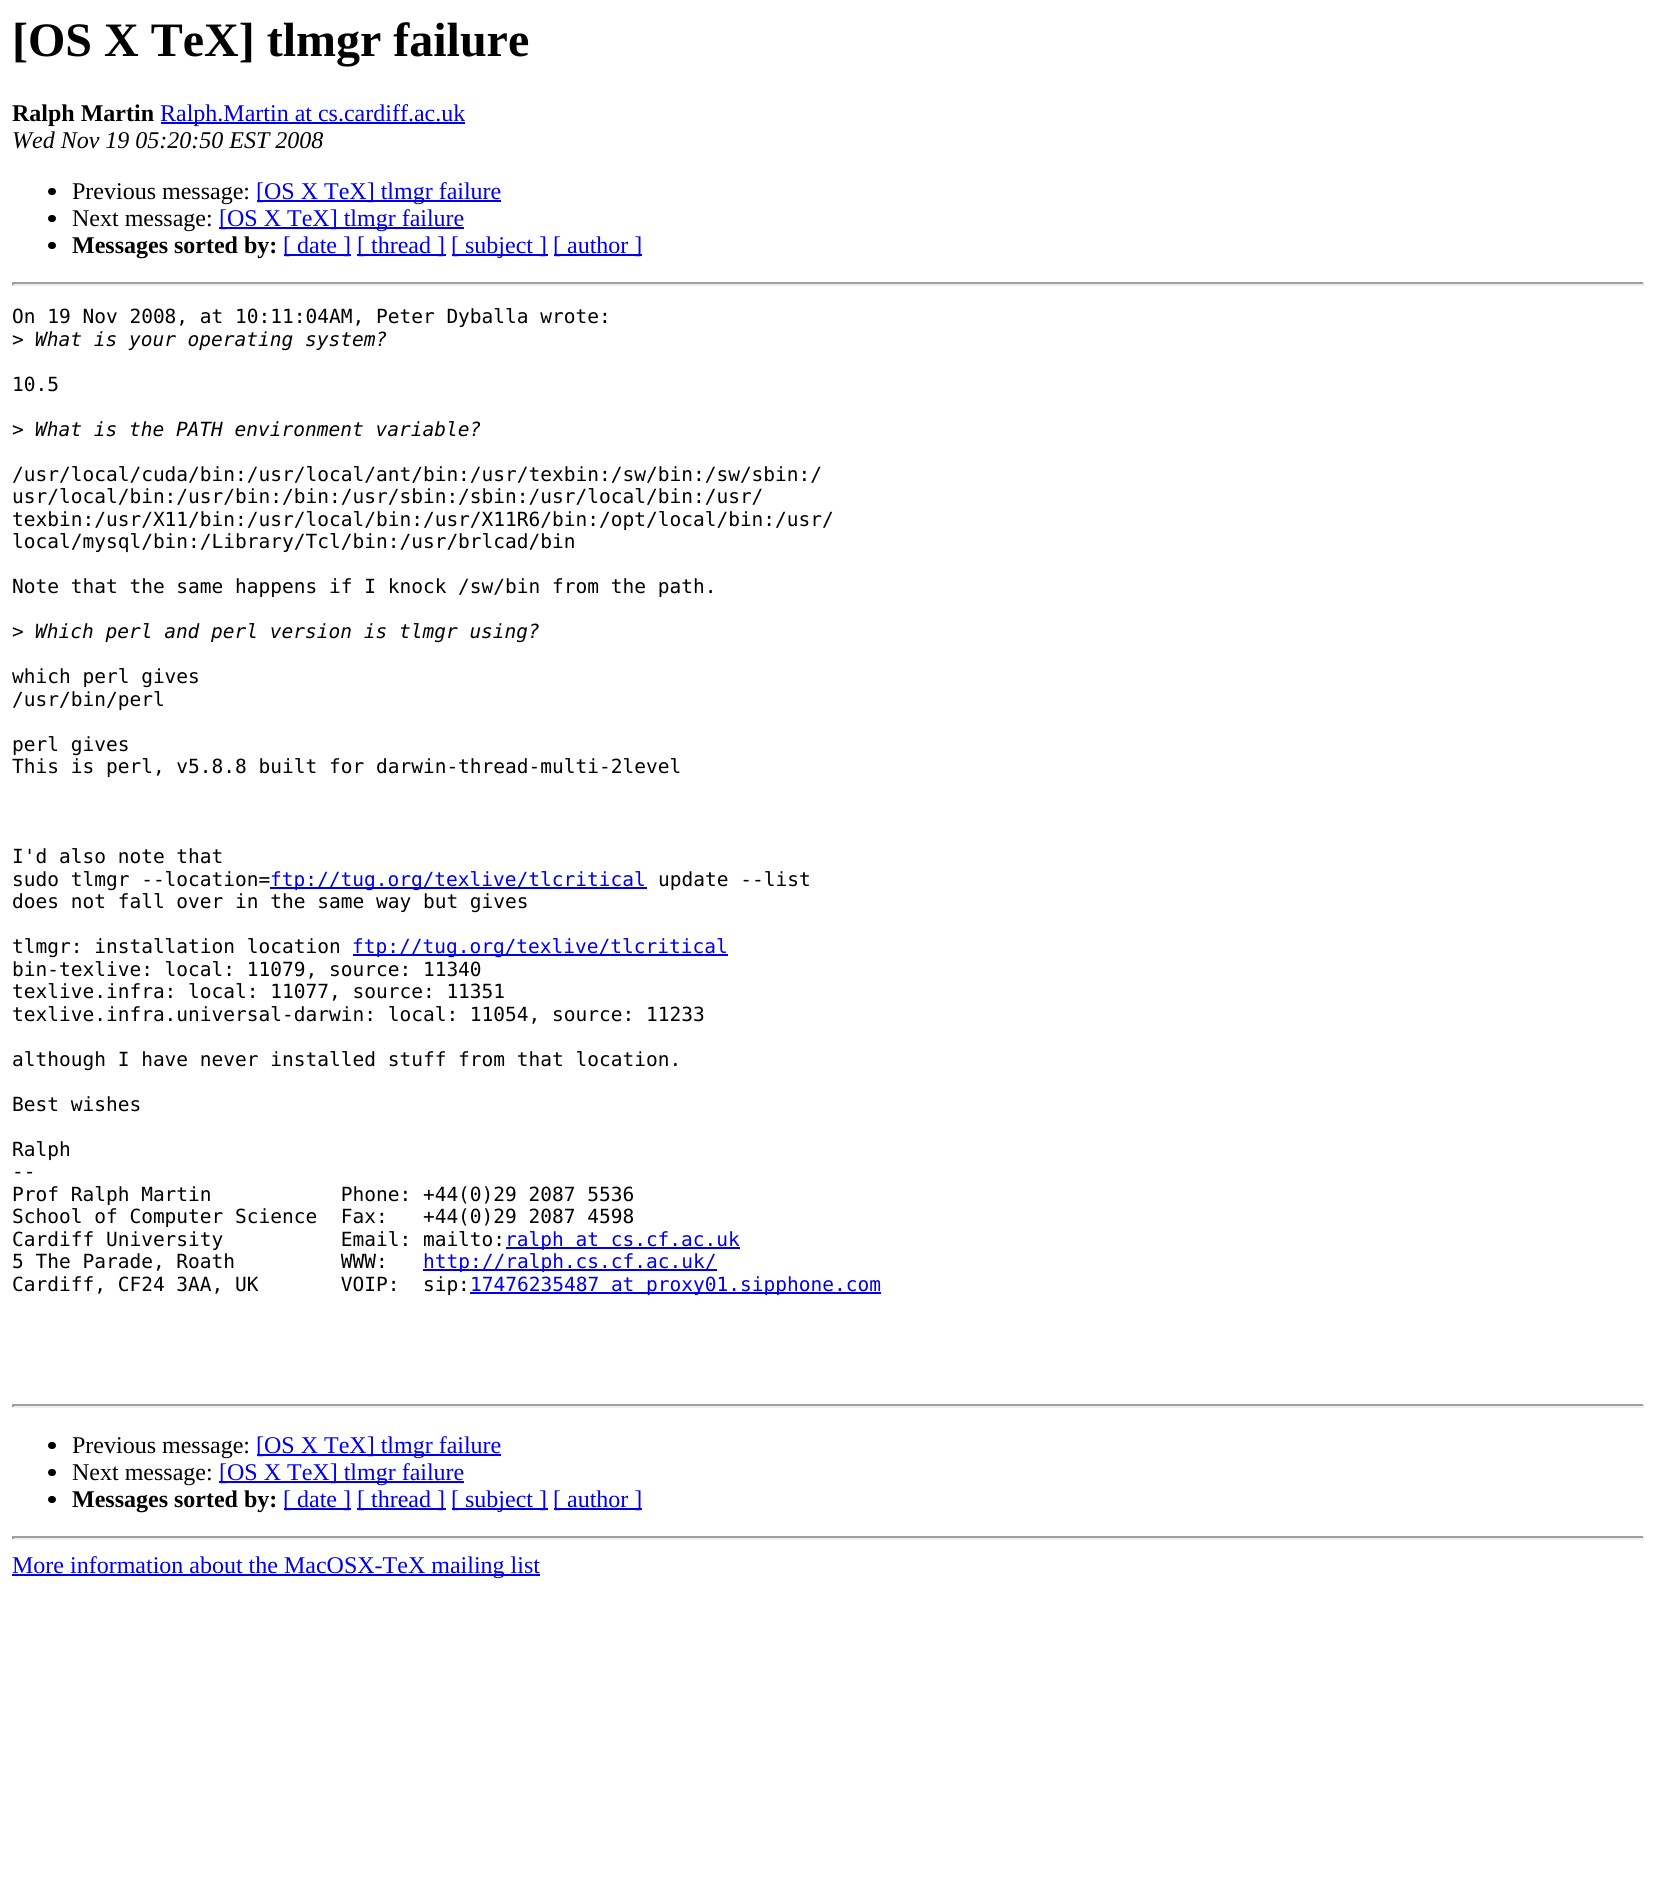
import math
import cairocffi as cairo

surface = cairo.ImageSurface(cairo.FORMAT_RGB24, 1655, 1888)
ctx = cairo.Context(surface)
options = cairo.FontOptions()
options.set_hint_metrics(cairo.HINT_METRICS_OFF)
options.set_hint_style(cairo.HINT_STYLE_NONE)
ctx.set_font_options(options)
ctx.set_miter_limit(4)


def rgb(r, g, b):
    ctx.set_source_rgb(r / 255, g / 255, b / 255)


def face(family, size, italic, bold):
    ctx.select_font_face(family, cairo.FONT_SLANT_ITALIC if italic else cairo.FONT_SLANT_NORMAL, cairo.FONT_WEIGHT_BOLD if bold else cairo.FONT_WEIGHT_NORMAL)
    ctx.set_font_size(size)


def label(x, y, s):
    ctx.move_to(x, y)
    ctx.show_text(s)


def rect(x, y, w, h):
    ctx.rectangle(x, y, w, h)
    ctx.fill()


def rrect(x, y, w, h, r):
    ctx.new_sub_path()
    for i, (u, v) in enumerate([(x + w - r, y + h - r), (x + r, y + h - r), (x + r, y + r), (x + w - r, y + r)]):
        ctx.arc(u, v, r, i * math.pi / 2, (i + 1) * math.pi / 2)
    ctx.close_path()


rgb(255, 255, 255)
ctx.paint()
face('Liberation Serif', 48, 0, 1)
rgb(0, 0, 0)
label(12, 56, '[OS X TeX] tlmgr failure')
face('Liberation Serif', 24, 0, 1)
label(12, 121, 'Ralph Martin')
rgb(0, 0, 238)
rect(161, 122, 304, 2)
face('Liberation Serif', 24, 0, 0)
label(160, 121, 'Ralph.Martin at cs.cardiff.ac.uk')
face('Liberation Serif', 24, 1, 0)
rgb(0, 0, 0)
label(12, 148, 'Wed Nov 19 05:20:50 EST 2008')
rrect(48, 188, 8, 7, 3.5)
ctx.fill()
face('Liberation Serif', 24, 0, 0)
label(72, 199, 'Previous message:')
rgb(0, 0, 238)
rect(257, 200, 244, 2)
label(256, 199, '[OS X TeX] tlmgr failure')
rgb(0, 0, 0)
rrect(48, 215, 8, 7, 3.5)
ctx.fill()
label(72, 226, 'Next message:')
rgb(0, 0, 238)
rect(219, 227, 245, 2)
label(219, 226, '[OS X TeX] tlmgr failure')
rgb(0, 0, 0)
rrect(48, 242, 8, 7, 3.5)
ctx.fill()
face('Liberation Serif', 24, 0, 1)
label(72, 253, 'Messages sorted by:')
rgb(0, 0, 238)
rect(284, 254, 67, 2)
face('Liberation Serif', 24, 0, 0)
label(283, 253, '[ date ]')
rect(357, 254, 89, 2)
label(357, 253, '[ thread ]')
rect(452, 254, 96, 2)
label(451, 253, '[ subject ]')
rect(554, 254, 88, 2)
label(553, 253, '[ author ]')
rgb(159, 159, 159)
rect(12, 282, 1632, 2)
rgb(238, 238, 238)
rect(1643, 282, 2, 3)
rect(12, 284, 1632, 2)
rgb(159, 159, 159)
rect(12, 282, 2, 3)
face('DejaVu Sans Mono', 19.5, 0, 0)
rgb(0, 0, 0)
label(12, 323, 'On 19 Nov 2008, at 10:11:04AM, Peter Dyballa wrote:')
label(12, 346, '>')
face('DejaVu Sans Mono', 19.5, 1, 0)
label(35, 346, 'What is your operating system?')
face('DejaVu Sans Mono', 19.5, 0, 0)
label(12, 391, '10.5')
label(12, 436, '>')
face('DejaVu Sans Mono', 19.5, 1, 0)
label(35, 436, 'What is the PATH environment variable?')
face('DejaVu Sans Mono', 19.5, 0, 0)
label(12, 481, '/usr/local/cuda/bin:/usr/local/ant/bin:/usr/texbin:/sw/bin:/sw/sbin:/')
label(12, 503, 'usr/local/bin:/usr/bin:/bin:/usr/sbin:/sbin:/usr/local/bin:/usr/')
label(12, 526, 'texbin:/usr/X11/bin:/usr/local/bin:/usr/X11R6/bin:/opt/local/bin:/usr/')
label(12, 548, 'local/mysql/bin:/Library/Tcl/bin:/usr/brlcad/bin')
label(12, 593, 'Note that the same happens if I knock /sw/bin from the path.')
label(12, 638, '>')
face('DejaVu Sans Mono', 19.5, 1, 0)
label(35, 638, 'Which perl and perl version is tlmgr using?')
face('DejaVu Sans Mono', 19.5, 0, 0)
label(12, 683, 'which perl gives')
label(12, 706, '/usr/bin/perl')
label(12, 751, 'perl gives')
label(12, 773, 'This is perl, v5.8.8 built for darwin-thread-multi-2level')
label(12, 863, 'I\'d also note that')
label(12, 886, 'sudo tlmgr --location=')
rgb(0, 0, 238)
rect(270, 887, 377, 2)
label(270, 886, 'ftp://tug.org/texlive/tlcritical')
rgb(0, 0, 0)
label(658, 886, 'update --list')
label(12, 908, 'does not fall over in the same way but gives')
label(12, 953, 'tlmgr: installation location')
rgb(0, 0, 238)
rect(353, 954, 375, 2)
label(352, 953, 'ftp://tug.org/texlive/tlcritical')
rgb(0, 0, 0)
label(12, 976, 'bin-texlive: local: 11079, source: 11340')
label(12, 998, 'texlive.infra: local: 11077, source: 11351')
label(12, 1021, 'texlive.infra.universal-darwin: local: 11054, source: 11233')
label(12, 1066, 'although I have never installed stuff from that location.')
label(12, 1111, 'Best wishes')
label(12, 1156, 'Ralph')
label(12, 1178, '--')
label(12, 1201, 'Prof Ralph Martin           Phone: +44(0)29 2087 5536')
label(12, 1223, 'School of Computer Science  Fax:   +44(0)29 2087 4598')
label(12, 1246, 'Cardiff University          Email: mailto:')
rgb(0, 0, 238)
rect(506, 1247, 234, 2)
label(505, 1246, 'ralph at cs.cf.ac.uk')
rgb(0, 0, 0)
label(12, 1268, '5 The Parade, Roath         WWW:')
rgb(0, 0, 238)
rect(423, 1269, 294, 2)
label(423, 1268, 'http://ralph.cs.cf.ac.uk/')
rgb(0, 0, 0)
label(12, 1291, 'Cardiff, CF24 3AA, UK       VOIP:  sip:')
rgb(0, 0, 238)
rect(470, 1292, 411, 2)
label(470, 1291, '17476235487 at proxy01.sipphone.com')
rgb(159, 159, 159)
rect(12, 1404, 1632, 2)
rgb(238, 238, 238)
rect(1643, 1404, 2, 3)
rect(12, 1406, 1632, 2)
rgb(159, 159, 159)
rect(12, 1404, 2, 3)
rgb(0, 0, 0)
rrect(48, 1442, 8, 7, 3.5)
ctx.fill()
face('Liberation Serif', 24, 0, 0)
label(72, 1453, 'Previous message:')
rgb(0, 0, 238)
rect(257, 1454, 244, 2)
label(256, 1453, '[OS X TeX] tlmgr failure')
rgb(0, 0, 0)
rrect(48, 1469, 8, 7, 3.5)
ctx.fill()
label(72, 1480, 'Next message:')
rgb(0, 0, 238)
rect(219, 1481, 245, 2)
label(219, 1480, '[OS X TeX] tlmgr failure')
rgb(0, 0, 0)
rrect(48, 1496, 8, 7, 3.5)
ctx.fill()
face('Liberation Serif', 24, 0, 1)
label(72, 1507, 'Messages sorted by:')
rgb(0, 0, 238)
rect(284, 1508, 67, 2)
face('Liberation Serif', 24, 0, 0)
label(283, 1507, '[ date ]')
rect(357, 1508, 89, 2)
label(357, 1507, '[ thread ]')
rect(452, 1508, 96, 2)
label(451, 1507, '[ subject ]')
rect(554, 1508, 88, 2)
label(553, 1507, '[ author ]')
rgb(159, 159, 159)
rect(12, 1536, 1632, 2)
rgb(238, 238, 238)
rect(1643, 1536, 2, 3)
rect(12, 1538, 1632, 2)
rgb(159, 159, 159)
rect(12, 1536, 2, 3)
rgb(0, 0, 238)
rect(12, 1574, 528, 2)
label(12, 1573, 'More information about the MacOSX-TeX mailing list')
surface.write_to_png('render.png')
